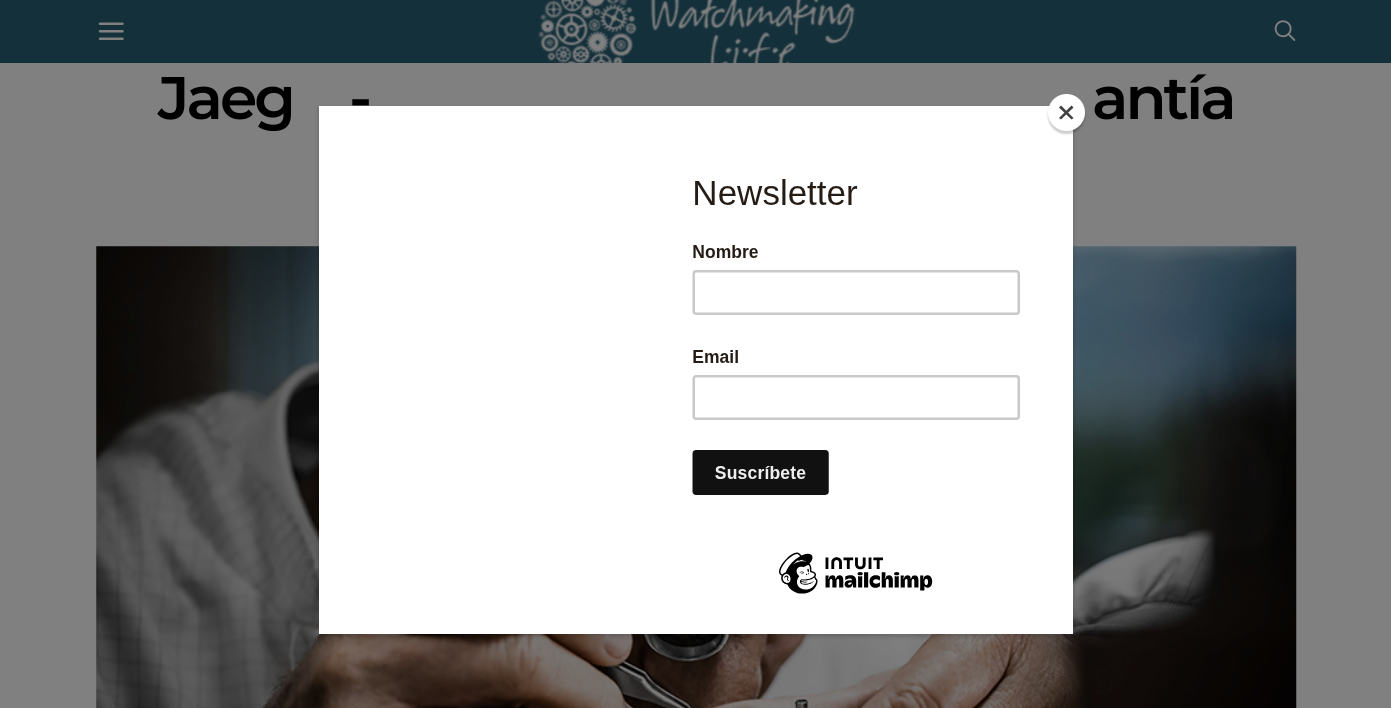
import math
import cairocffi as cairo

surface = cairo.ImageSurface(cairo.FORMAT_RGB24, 1391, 708)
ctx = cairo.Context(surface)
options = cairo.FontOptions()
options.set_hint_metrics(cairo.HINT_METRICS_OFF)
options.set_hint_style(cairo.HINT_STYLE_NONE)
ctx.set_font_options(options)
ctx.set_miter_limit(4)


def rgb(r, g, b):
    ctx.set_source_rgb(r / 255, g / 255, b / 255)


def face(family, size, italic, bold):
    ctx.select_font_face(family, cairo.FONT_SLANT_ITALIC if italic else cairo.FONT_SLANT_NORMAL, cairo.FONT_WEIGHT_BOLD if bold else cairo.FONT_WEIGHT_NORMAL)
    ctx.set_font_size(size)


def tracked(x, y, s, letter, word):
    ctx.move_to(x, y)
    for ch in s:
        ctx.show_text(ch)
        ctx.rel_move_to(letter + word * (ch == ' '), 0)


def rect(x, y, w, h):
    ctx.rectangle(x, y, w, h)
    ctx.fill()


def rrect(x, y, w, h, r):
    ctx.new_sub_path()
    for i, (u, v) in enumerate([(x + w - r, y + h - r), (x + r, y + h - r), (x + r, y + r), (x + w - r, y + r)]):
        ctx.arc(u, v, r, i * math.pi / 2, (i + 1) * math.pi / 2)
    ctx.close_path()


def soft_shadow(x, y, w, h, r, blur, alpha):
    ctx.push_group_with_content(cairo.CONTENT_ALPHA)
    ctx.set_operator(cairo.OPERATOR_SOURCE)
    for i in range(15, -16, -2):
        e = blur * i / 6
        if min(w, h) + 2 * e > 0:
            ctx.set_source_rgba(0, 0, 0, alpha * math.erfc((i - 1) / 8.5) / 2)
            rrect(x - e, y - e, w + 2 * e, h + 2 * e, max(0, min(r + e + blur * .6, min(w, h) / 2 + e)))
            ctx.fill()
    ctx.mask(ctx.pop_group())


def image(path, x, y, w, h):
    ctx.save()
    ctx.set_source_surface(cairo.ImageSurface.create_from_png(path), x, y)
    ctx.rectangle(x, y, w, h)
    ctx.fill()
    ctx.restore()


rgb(128, 128, 128)
ctx.paint()
rgb(20, 48, 58)
rect(0, 0, 1391, 63)
image('image0.png', 98, 22, 26, 18)
image('image1.png', 538, 0, 317, 81)
image('image2.png', 1274, 20, 22, 21)
face('Montserrat SemiBold', 60, 0, 0)
rgb(0, 0, 0)
tracked(158, 119, 'Jaeg', -3, 0)
tracked(349, 119, '-', -3, 0)
tracked(1092, 119, 'antía', -3, 0)
image('image3.png', 96, 246, 1201, 462)
rgb(0, 0, 0)
soft_shadow(319, 109, 754, 527, 0, 2.5, 0.2)
image('image4.png', 319, 106, 754, 528)
soft_shadow(1048, 96, 37, 38, 18.5, 1, 0.2)
rgb(255, 255, 255)
ctx.arc(1066.5, 112.5, 18.5, 0, 2 * math.pi)
ctx.fill()
rgb(65, 65, 65)
ctx.new_path()
ctx.move_to(1071.5, 105.5)
ctx.line_to(1073.5, 107.5)
ctx.line_to(1061, 119.5)
ctx.line_to(1059, 118)
ctx.close_path()
ctx.fill()
ctx.new_path()
ctx.move_to(1059, 107.5)
ctx.line_to(1061, 105.5)
ctx.line_to(1073.5, 118)
ctx.line_to(1071.5, 119.5)
ctx.close_path()
ctx.fill()
surface.write_to_png('render.png')
